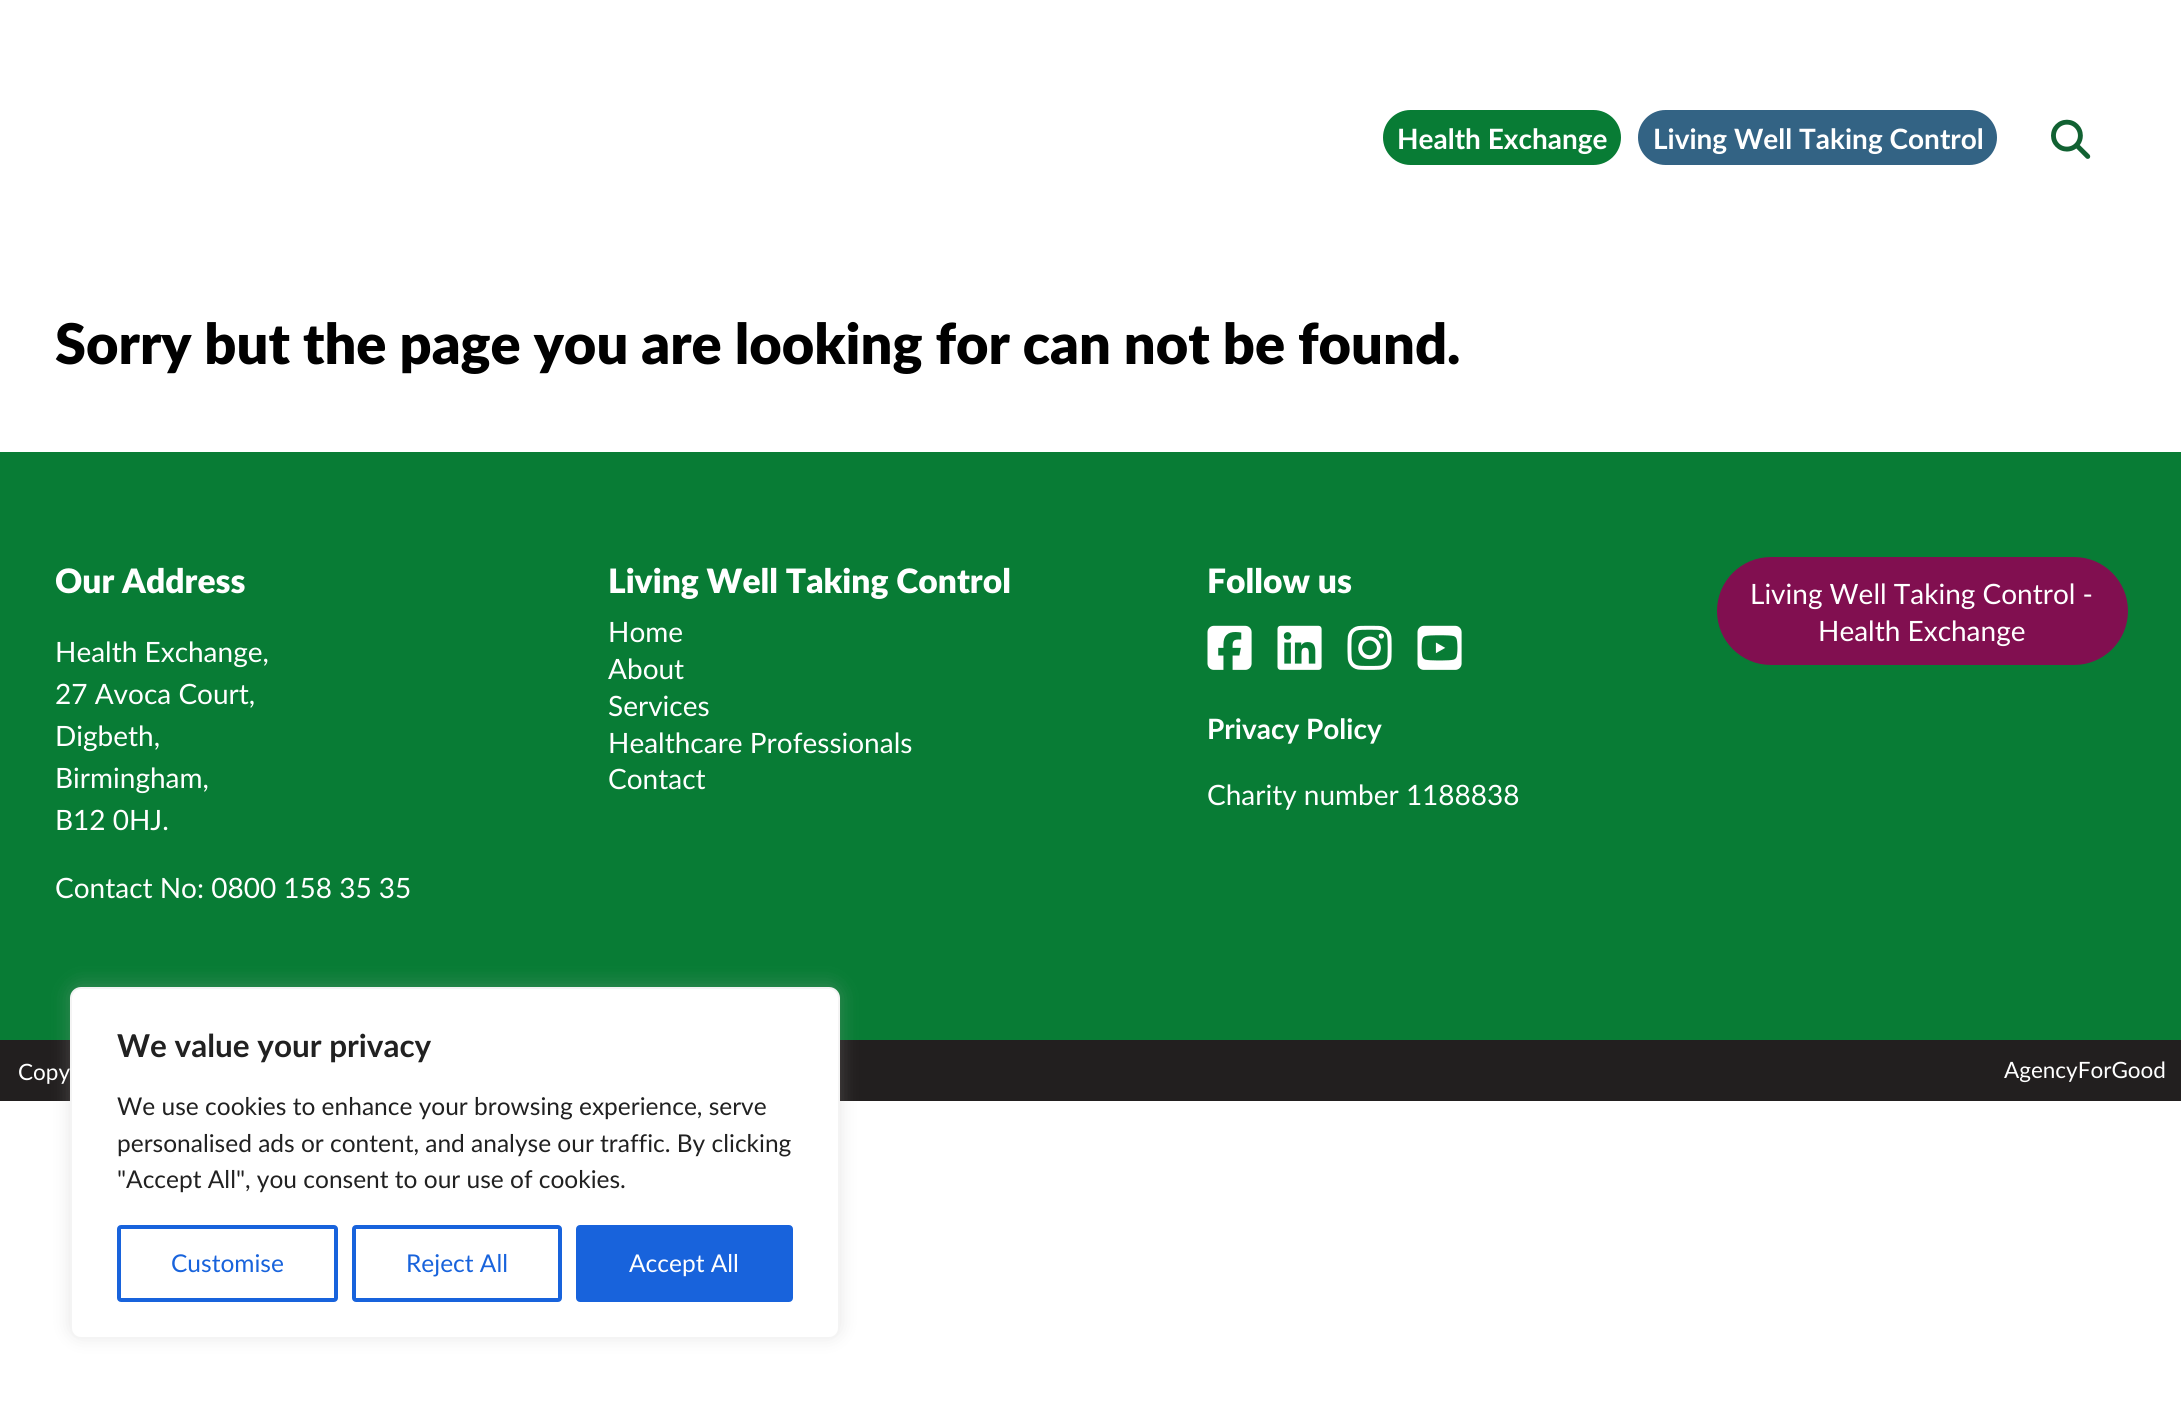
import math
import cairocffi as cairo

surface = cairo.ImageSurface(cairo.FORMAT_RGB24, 2181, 1408)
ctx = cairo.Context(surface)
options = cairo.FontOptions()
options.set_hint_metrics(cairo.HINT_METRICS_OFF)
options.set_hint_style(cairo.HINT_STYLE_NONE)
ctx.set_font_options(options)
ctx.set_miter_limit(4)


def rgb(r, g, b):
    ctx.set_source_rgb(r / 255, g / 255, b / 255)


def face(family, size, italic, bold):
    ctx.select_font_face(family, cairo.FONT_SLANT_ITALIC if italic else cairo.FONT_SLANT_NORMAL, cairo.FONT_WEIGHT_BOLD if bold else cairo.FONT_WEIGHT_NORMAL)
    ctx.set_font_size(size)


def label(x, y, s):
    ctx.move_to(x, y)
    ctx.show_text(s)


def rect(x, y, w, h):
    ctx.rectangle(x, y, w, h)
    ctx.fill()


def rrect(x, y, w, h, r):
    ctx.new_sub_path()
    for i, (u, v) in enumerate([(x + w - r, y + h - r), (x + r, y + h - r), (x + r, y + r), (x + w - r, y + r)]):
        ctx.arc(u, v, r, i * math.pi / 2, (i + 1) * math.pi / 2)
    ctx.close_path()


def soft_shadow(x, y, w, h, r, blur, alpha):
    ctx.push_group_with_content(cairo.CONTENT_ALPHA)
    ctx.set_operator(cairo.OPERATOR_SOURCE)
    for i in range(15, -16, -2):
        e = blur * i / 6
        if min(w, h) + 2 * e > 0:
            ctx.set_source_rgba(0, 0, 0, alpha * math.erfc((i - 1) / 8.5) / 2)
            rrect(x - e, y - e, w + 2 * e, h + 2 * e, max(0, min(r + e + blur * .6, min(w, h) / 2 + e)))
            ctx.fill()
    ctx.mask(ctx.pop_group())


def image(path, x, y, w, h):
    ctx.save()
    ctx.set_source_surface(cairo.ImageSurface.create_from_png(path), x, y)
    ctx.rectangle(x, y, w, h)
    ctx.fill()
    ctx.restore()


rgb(255, 255, 255)
ctx.paint()
rgb(8, 124, 53)
rrect(1383, 110, 238, 55, 27.5)
ctx.fill()
face('Lato', 28, 0, 1)
rgb(255, 255, 255)
label(1397, 149, 'Health Exchange')
rgb(51, 99, 132)
rrect(1638, 110, 359, 55, 27.5)
ctx.fill()
rgb(255, 255, 255)
label(1653, 149, 'Living Well Taking Control')
image('image0.png', 2051, 119, 40, 40)
face('Lato Black', 56, 0, 0)
rgb(0, 0, 0)
label(55, 364, 'Sorry but the page you are looking for can not be found.')
rgb(8, 124, 53)
rect(0, 452, 2181, 588)
face('Lato Black', 33.6, 0, 0)
rgb(255, 255, 255)
label(55, 593, 'Our Address')
face('Lato', 28, 0, 0)
label(55, 662, 'Health Exchange,')
label(55, 704, '27 Avoca Court,')
label(55, 746, 'Digbeth,')
label(55, 788, 'Birmingham,')
label(55, 830, 'B12 0HJ.')
label(55, 898, 'Contact No: 0800 158 35 35')
face('Lato Black', 33.6, 0, 0)
label(608, 593, 'Living Well Taking Control')
face('Lato', 28, 0, 0)
label(608, 642, 'Home')
label(608, 679, 'About')
label(608, 716, 'Services')
label(608, 753, 'Healthcare Professionals')
label(608, 789, 'Contact')
face('Lato Black', 33.6, 0, 0)
label(1207, 593, 'Follow us')
image('image1.png', 1207, 625, 45, 45)
image('image2.png', 1277, 625, 45, 45)
image('image3.png', 1347, 625, 45, 45)
image('image4.png', 1417, 625, 45, 45)
face('Lato', 28, 0, 1)
label(1207, 739, 'Privacy Policy')
face('Lato', 28, 0, 0)
label(1207, 805, 'Charity number 1188838')
rgb(129, 15, 80)
rrect(1717, 557, 411, 108, 54)
ctx.fill()
rgb(255, 255, 255)
label(1750, 604, 'Living Well Taking Control -')
label(1818, 641, 'Health Exchange')
rgb(34, 31, 31)
rect(0, 1040, 2181, 61)
rgb(172, 171, 171)
soft_shadow(70, 985, 770, 352, 11, 9, 0.3)
rgb(255, 255, 255)
rrect(71, 988, 768, 350, 10)
ctx.fill_preserve()
rgb(244, 244, 244)
ctx.stroke()
face('Lato', 31.5, 0, 1)
rgb(33, 33, 33)
label(117, 1057, 'We value your privacy')
face('Lato', 24.5, 0, 0)
label(117, 1115, 'We use cookies to enhance your browsing experience, serve')
label(117, 1152, 'personalised ads or content, and analyse our traffic. By clicking')
label(117, 1188, '"Accept All", you consent to our use of cookies.')
rrect(119, 1227, 217, 73, 2)
rgb(24, 99, 220)
ctx.set_line_width(4)
ctx.stroke()
label(171, 1272, 'Customise')
rrect(354, 1227, 206, 73, 2)
ctx.stroke()
label(406, 1272, 'Reject All')
rrect(578, 1227, 213, 73, 2)
ctx.fill_preserve()
ctx.stroke()
rgb(255, 255, 255)
label(629, 1272, 'Accept All')
face('Lato', 22.5, 0, 0)
label(18, 1080, 'Copy')
label(2004, 1078, 'AgencyForGood')
surface.write_to_png('render.png')
